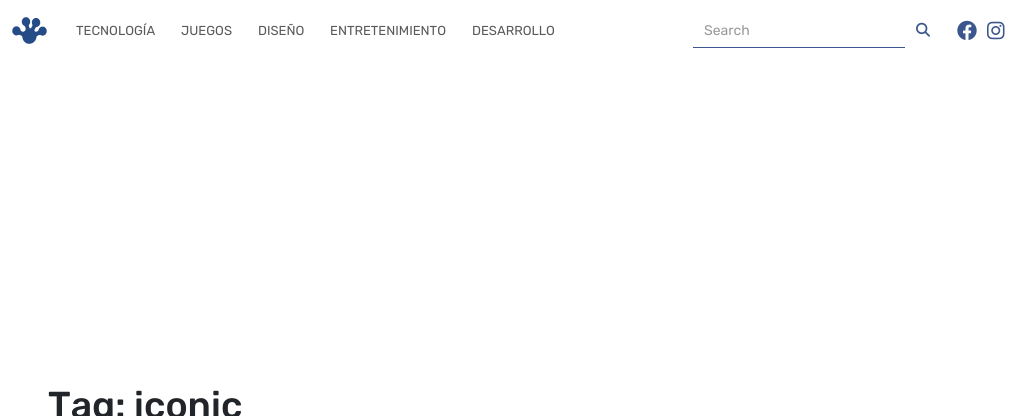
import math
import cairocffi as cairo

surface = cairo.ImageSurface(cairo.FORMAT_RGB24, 1031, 416)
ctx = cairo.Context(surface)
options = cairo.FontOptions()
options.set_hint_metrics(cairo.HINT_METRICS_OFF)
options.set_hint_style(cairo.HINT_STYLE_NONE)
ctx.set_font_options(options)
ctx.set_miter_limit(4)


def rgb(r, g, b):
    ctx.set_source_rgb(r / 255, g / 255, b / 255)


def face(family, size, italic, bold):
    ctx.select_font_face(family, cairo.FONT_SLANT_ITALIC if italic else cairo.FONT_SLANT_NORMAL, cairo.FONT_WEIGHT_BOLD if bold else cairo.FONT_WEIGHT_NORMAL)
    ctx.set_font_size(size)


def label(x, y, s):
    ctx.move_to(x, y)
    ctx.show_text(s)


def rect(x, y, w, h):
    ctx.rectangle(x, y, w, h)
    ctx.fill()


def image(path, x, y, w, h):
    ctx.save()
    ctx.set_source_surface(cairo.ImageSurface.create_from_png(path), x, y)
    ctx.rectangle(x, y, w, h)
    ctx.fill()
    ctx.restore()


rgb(255, 255, 255)
ctx.paint()
image('image0.png', 12, 17, 35, 27)
face('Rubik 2 Light', 13, 0, 0)
rgb(89, 89, 89)
label(76, 35, 'TECNOLOGÍA')
label(181, 35, 'JUEGOS')
label(258, 35, 'DISEÑO')
label(330, 35, 'ENTRETENIMIENTO')
label(472, 35, 'DESARROLLO')
rgb(59, 86, 140)
rect(693, 47, 212, 1)
face('Rubik 2 Light', 14, 0, 0)
rgb(153, 153, 153)
label(704, 35, 'Search')
image('image1.png', 916, 22, 14, 15)
image('image2.png', 957, 20, 20, 20)
image('image3.png', 987, 21, 18, 19)
face('Rubik Light', 37.5, 0, 0)
rgb(33, 37, 41)
label(48, 418, 'Tag: iconic')
surface.write_to_png('render.png')
